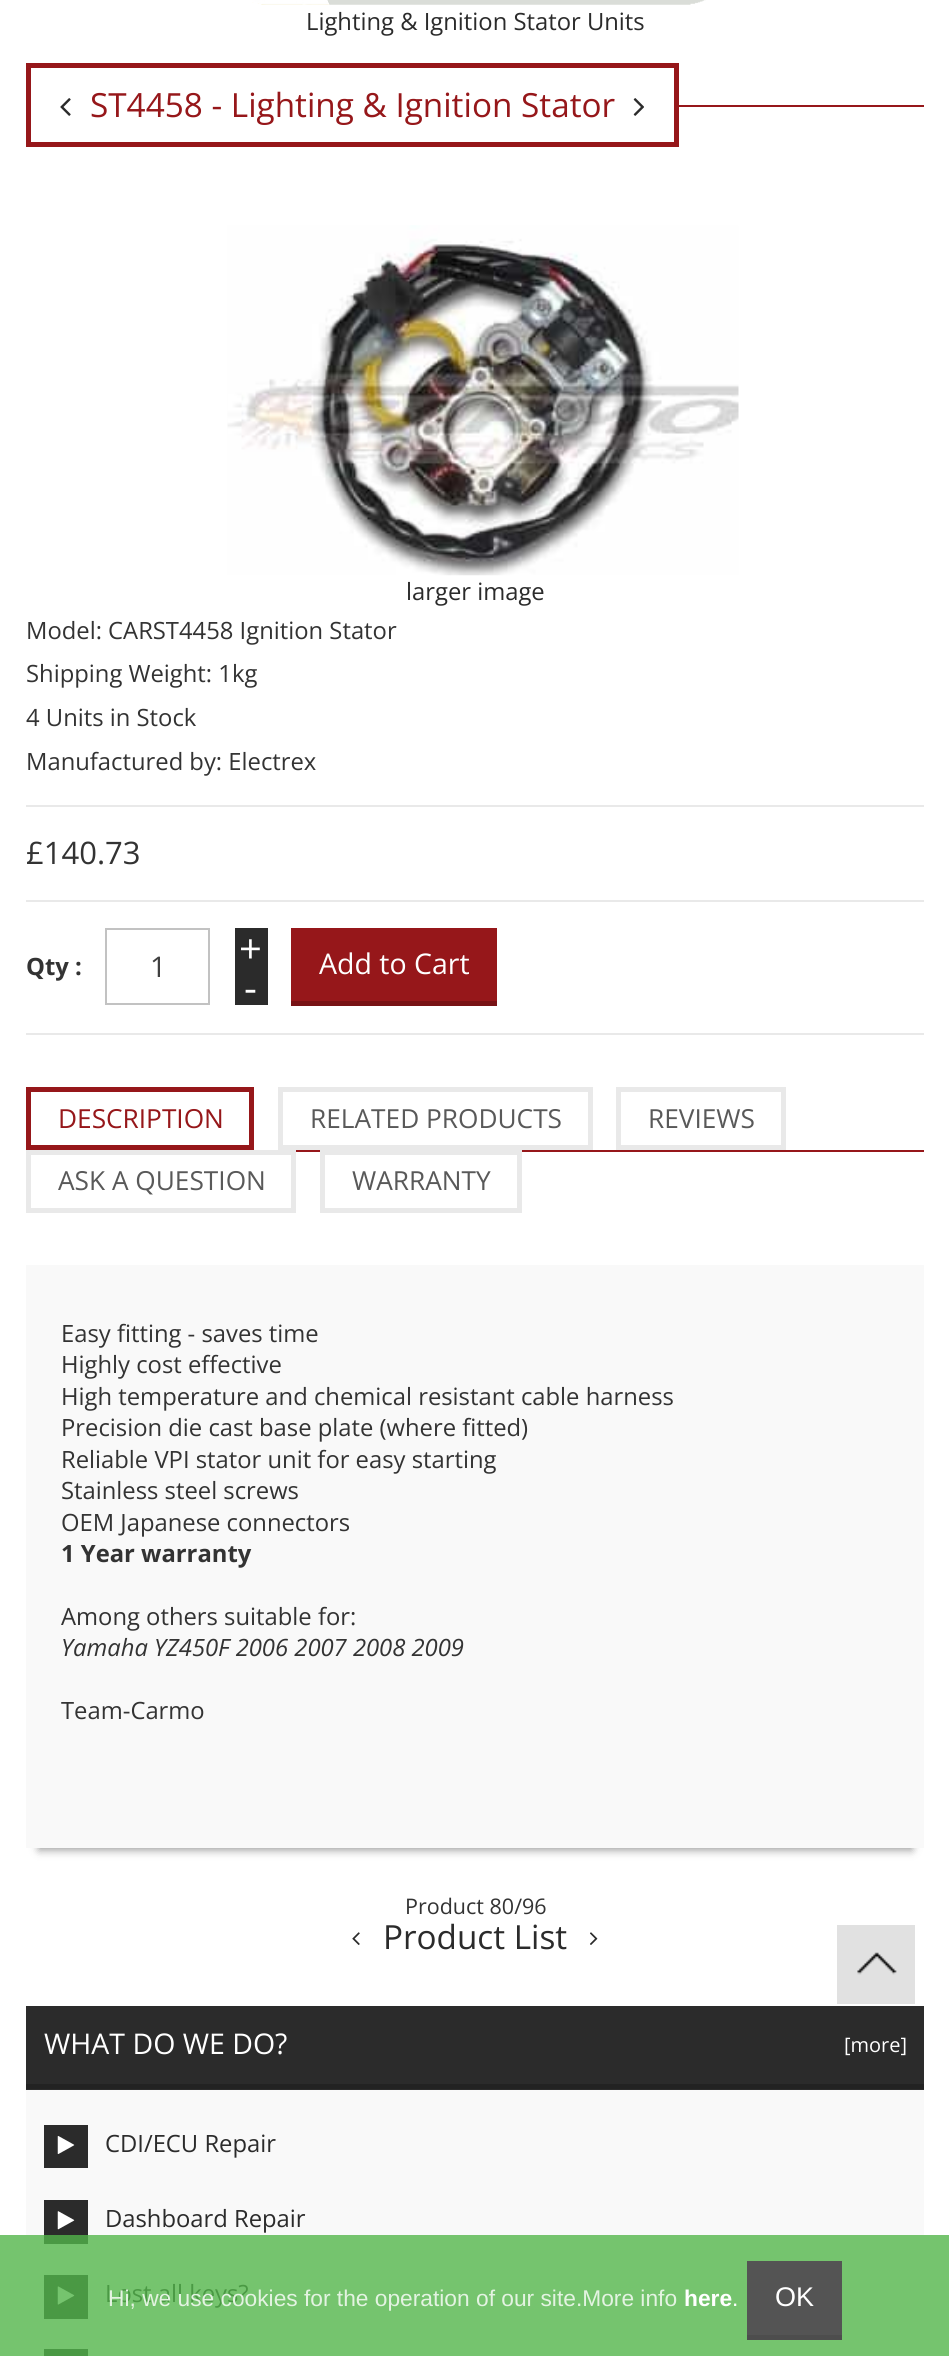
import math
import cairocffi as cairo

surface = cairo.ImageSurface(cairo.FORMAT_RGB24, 949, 2356)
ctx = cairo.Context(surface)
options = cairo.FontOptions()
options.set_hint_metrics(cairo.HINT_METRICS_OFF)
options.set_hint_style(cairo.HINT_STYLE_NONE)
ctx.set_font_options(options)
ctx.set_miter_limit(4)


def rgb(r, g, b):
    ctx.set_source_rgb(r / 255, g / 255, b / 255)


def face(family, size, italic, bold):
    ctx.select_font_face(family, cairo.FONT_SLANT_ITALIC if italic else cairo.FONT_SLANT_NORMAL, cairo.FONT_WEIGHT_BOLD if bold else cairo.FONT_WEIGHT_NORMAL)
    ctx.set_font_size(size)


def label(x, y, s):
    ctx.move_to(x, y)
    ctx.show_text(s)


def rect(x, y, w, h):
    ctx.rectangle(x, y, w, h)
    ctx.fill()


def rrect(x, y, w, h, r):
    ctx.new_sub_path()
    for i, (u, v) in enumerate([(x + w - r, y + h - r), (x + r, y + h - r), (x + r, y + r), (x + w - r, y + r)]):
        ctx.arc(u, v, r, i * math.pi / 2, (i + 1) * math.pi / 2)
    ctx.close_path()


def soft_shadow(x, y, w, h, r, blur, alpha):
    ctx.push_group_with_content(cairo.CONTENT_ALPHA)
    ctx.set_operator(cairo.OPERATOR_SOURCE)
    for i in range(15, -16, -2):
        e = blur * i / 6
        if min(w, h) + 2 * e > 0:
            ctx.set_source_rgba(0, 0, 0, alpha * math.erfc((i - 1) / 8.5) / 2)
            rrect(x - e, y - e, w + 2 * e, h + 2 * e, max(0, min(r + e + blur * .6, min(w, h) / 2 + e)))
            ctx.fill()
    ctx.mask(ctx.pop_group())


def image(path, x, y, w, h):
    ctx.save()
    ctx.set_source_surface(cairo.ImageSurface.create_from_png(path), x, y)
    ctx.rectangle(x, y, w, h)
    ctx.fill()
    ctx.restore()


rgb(255, 255, 255)
ctx.paint()
rgb(117, 196, 110)
rect(0, 2235, 949, 121)
image('image0.png', 252, 0, 454, 5)
face('Open Sans', 23.8, 0, 0)
rgb(43, 43, 43)
label(306, 30, 'Lighting & Ignition Stator Units')
ctx.rectangle(28.5, 65.5, 648, 79)
rgb(150, 23, 26)
ctx.set_line_width(5)
ctx.stroke()
image('image1.png', 60, 98, 11, 18)
face('Open Sans', 33.3, 0, 0)
label(90, 117, 'ST4458 - Lighting & Ignition Stator')
image('image2.png', 633, 98, 11, 18)
rect(679, 105, 245, 2)
image('image3.png', 227, 225, 512, 351)
face('Open Sans', 23.8, 0, 0)
rgb(43, 43, 43)
label(406, 600, 'larger image')
rgb(233, 233, 233)
rect(26, 805, 898, 2)
rgb(51, 51, 51)
label(26, 639, 'Model: CARST4458 Ignition Stator')
label(26, 682, 'Shipping Weight: 1kg')
label(26, 726, '4 Units in Stock')
label(26, 770, 'Manufactured by: Electrex')
rgb(233, 233, 233)
rect(26, 900, 898, 2)
face('Open Sans', 31, 0, 0)
rgb(51, 51, 51)
label(26, 864, '£140.73')
rgb(233, 233, 233)
rect(26, 1033, 898, 2)
rgb(43, 43, 43)
rect(235, 928, 33, 77)
face('Open Sans', 40, 0, 0)
rgb(255, 255, 255)
label(239, 963, '+')
face('Open Sans', 23.8, 0, 1)
rgb(51, 51, 51)
label(26, 975, 'Qty :')
ctx.rectangle(106, 929, 103, 75)
rgb(194, 194, 194)
ctx.set_line_width(2)
ctx.stroke()
face('Open Sans', 28.5, 0, 0)
rgb(64, 64, 64)
label(150, 977, '1')
face('Open Sans', 40, 0, 0)
rgb(255, 255, 255)
label(244, 1002, '-')
rgb(150, 23, 26)
rect(291, 928, 206, 73)
rgb(120, 18, 21)
rect(291, 1001, 206, 5)
face('Open Sans', 28.5, 0, 0)
rgb(255, 255, 255)
label(319, 974, 'Add to Cart')
ctx.rectangle(28.5, 1089.5, 223, 58)
rgb(150, 23, 26)
ctx.set_line_width(5)
ctx.stroke()
face('Open Sans', 26.25, 0, 0)
label(58, 1128, 'DESCRIPTION')
ctx.rectangle(280.5, 1089.5, 310, 58)
rgb(233, 233, 233)
ctx.stroke()
rgb(89, 89, 89)
label(310, 1128, 'RELATED PRODUCTS')
ctx.rectangle(618.5, 1089.5, 165, 58)
rgb(233, 233, 233)
ctx.stroke()
rgb(89, 89, 89)
label(648, 1128, 'REVIEWS')
rgb(150, 23, 26)
rect(296, 1150, 628, 2)
ctx.rectangle(28.5, 1152.5, 265, 58)
rgb(233, 233, 233)
ctx.stroke()
rgb(89, 89, 89)
label(58, 1190, 'ASK A QUESTION')
ctx.rectangle(322.5, 1152.5, 197, 58)
rgb(233, 233, 233)
ctx.stroke()
rgb(89, 89, 89)
label(352, 1190, 'WARRANTY')
rgb(0, 0, 0)
soft_shadow(39, 1292, 873, 558, 0, 4.5, 0.4)
rgb(249, 249, 249)
rect(26, 1265, 898, 583)
face('Open Sans', 23.8, 0, 0)
rgb(51, 51, 51)
label(61, 1342, 'Easy fitting - saves time')
label(61, 1373, 'Highly cost effective')
label(61, 1405, 'High temperature and chemical resistant cable harness')
label(61, 1436, 'Precision die cast base plate (where fitted)')
label(61, 1468, 'Reliable VPI stator unit for easy starting')
label(61, 1499, 'Stainless steel screws')
label(61, 1531, 'OEM Japanese connectors')
face('Open Sans', 23.8, 0, 1)
label(61, 1562, '1 Year warranty')
face('Open Sans', 23.8, 0, 0)
label(61, 1625, 'Among others suitable for:')
face('Open Sans', 23.8, 1, 0)
label(61, 1656, 'Yamaha YZ450F 2006 2007 2008 2009')
face('Open Sans', 23.8, 0, 0)
label(61, 1719, 'Team-Carmo')
face('Open Sans', 21.5, 0, 0)
label(405, 1914, 'Product 80/96')
image('image4.png', 352, 1932, 8, 13)
face('Open Sans', 33.25, 0, 0)
rgb(43, 43, 43)
label(383, 1949, 'Product List')
image('image5.png', 590, 1932, 8, 13)
rect(26, 2006, 898, 84)
rgb(34, 34, 34)
rect(26, 2084, 898, 5)
face('Open Sans', 28.5, 0, 0)
rgb(255, 255, 255)
label(44, 2054, 'WHAT DO WE DO?')
face('Open Sans', 20, 0, 0)
label(844, 2052, '[more]')
rgb(249, 249, 249)
rect(26, 2090, 898, 145)
rgb(43, 43, 43)
rect(44, 2125, 44, 43)
image('image6.png', 57, 2136, 18, 18)
face('Open Sans', 23.8, 0, 0)
label(105, 2152, 'CDI/ECU Repair')
rect(44, 2200, 44, 35)
rgb(74, 153, 68)
rect(44, 2235, 44, 9)
image('image7.png', 57, 2211, 18, 19)
rgb(43, 43, 43)
label(105, 2227, 'Dashboard Repair')
rgb(74, 153, 68)
rect(44, 2275, 44, 44)
image('image8.png', 57, 2286, 18, 19)
label(105, 2302, 'Lost all keys?')
rect(44, 2349, 44, 7)
rgb(225, 225, 225)
rect(837, 1925, 78, 79)
image('image9.png', 857, 1952, 40, 23)
face('Liberation Sans', 22.75, 0, 0)
rgb(227, 243, 225)
label(108, 2306, 'Hi, we use cookies for the operation of our site.More info')
face('Liberation Sans', 22.75, 0, 1)
rgb(255, 255, 255)
label(684, 2306, 'here')
face('Liberation Sans', 22.75, 0, 0)
label(732, 2306, '.')
rgb(84, 84, 84)
rect(747, 2261, 95, 74)
rgb(77, 77, 77)
rect(747, 2335, 95, 5)
face('Liberation Sans', 27, 0, 0)
rgb(255, 255, 255)
label(775, 2306, 'OK')
surface.write_to_png('render.png')
